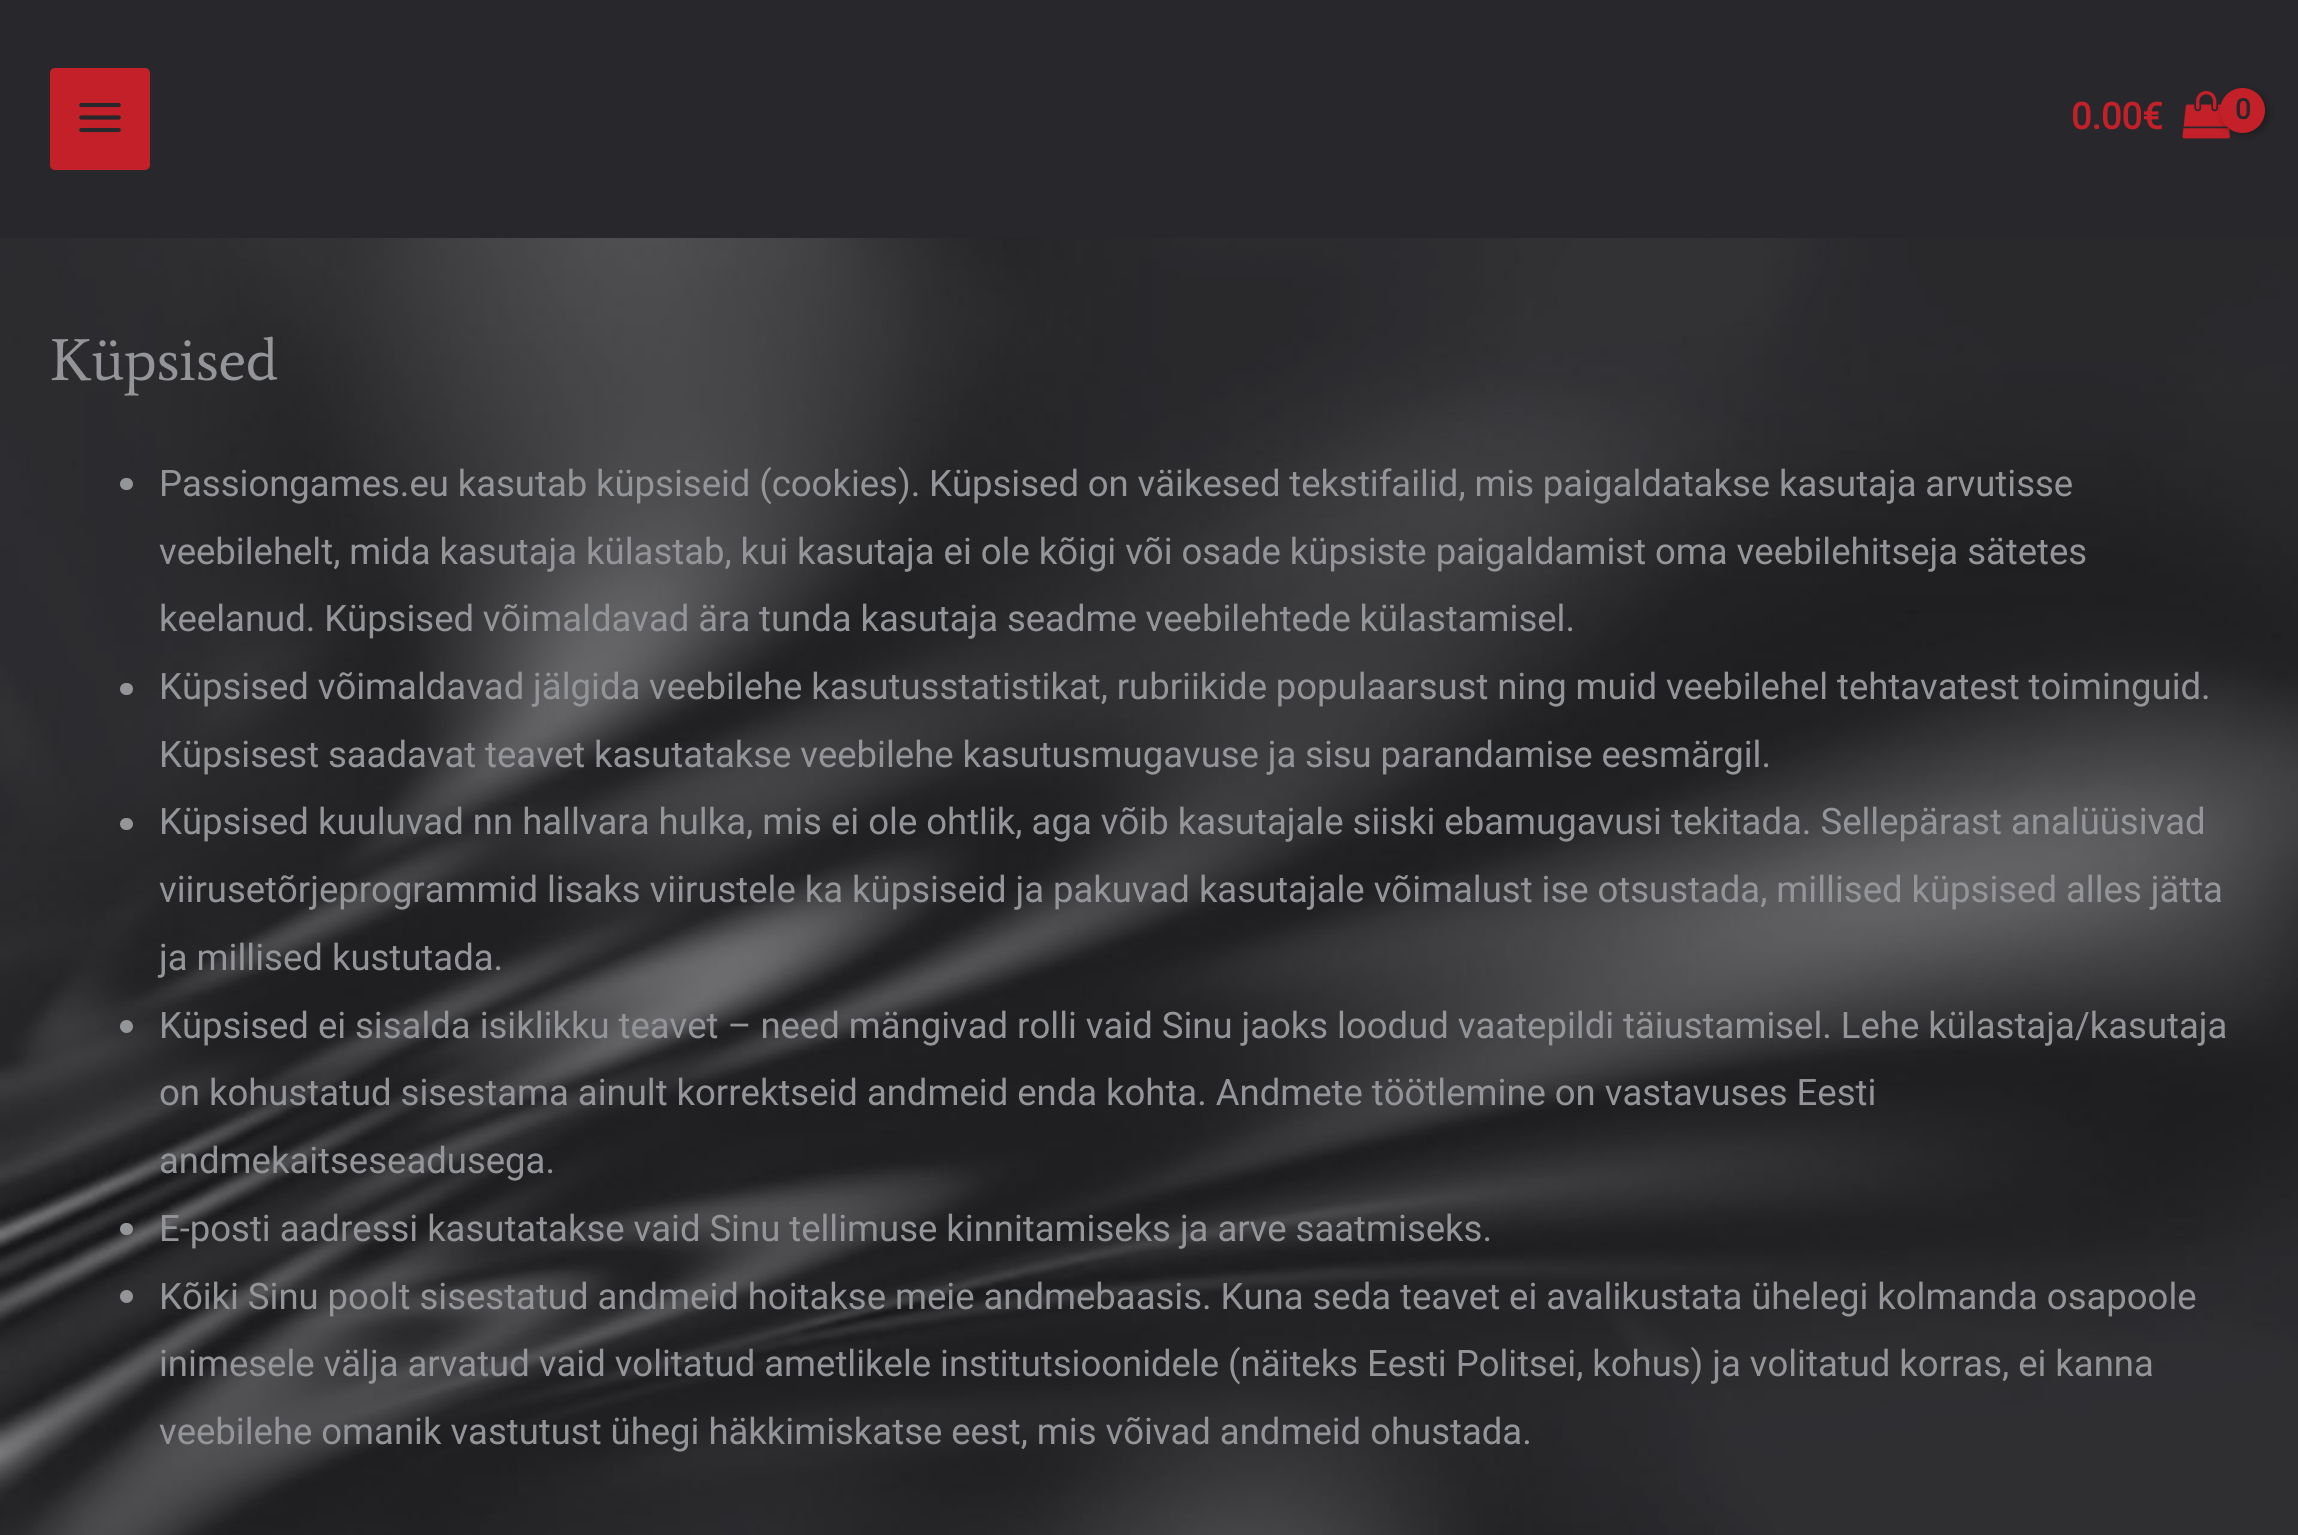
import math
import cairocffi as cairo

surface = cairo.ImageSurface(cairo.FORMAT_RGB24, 2298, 1535)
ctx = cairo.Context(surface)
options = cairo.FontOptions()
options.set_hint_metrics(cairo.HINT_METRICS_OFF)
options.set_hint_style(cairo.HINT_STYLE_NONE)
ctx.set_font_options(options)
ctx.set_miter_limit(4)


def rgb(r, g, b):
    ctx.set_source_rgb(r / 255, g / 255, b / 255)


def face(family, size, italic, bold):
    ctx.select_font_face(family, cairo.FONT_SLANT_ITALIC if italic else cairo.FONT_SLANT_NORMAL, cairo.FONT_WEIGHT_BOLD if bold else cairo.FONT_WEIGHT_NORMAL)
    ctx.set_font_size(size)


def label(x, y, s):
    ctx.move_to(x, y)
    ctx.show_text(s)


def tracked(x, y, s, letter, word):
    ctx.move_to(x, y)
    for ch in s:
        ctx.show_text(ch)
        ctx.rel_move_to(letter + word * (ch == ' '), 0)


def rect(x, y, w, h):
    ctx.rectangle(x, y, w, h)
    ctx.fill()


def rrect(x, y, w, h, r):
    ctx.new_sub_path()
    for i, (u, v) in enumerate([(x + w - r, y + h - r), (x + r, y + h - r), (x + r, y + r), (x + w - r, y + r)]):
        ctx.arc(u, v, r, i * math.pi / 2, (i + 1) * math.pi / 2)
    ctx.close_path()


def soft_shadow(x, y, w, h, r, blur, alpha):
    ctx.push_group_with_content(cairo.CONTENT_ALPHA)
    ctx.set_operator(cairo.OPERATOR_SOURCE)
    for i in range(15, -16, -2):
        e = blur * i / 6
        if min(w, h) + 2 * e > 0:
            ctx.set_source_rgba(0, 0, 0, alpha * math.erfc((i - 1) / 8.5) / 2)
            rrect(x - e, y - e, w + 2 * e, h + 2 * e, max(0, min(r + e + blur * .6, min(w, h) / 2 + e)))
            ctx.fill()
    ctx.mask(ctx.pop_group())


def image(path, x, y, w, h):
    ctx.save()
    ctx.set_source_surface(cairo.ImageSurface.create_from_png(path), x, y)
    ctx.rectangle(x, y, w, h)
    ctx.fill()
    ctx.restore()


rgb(255, 255, 255)
ctx.paint()
image('image0.png', 0, 238, 2298, 1297)
rgb(40, 39, 43)
rect(0, 0, 2298, 238)
rgb(196, 32, 41)
rrect(50, 68, 100, 102, 5)
ctx.fill()
image('image1.png', 79, 102, 42, 31)
face('Roboto', 36.48, 0, 1)
label(2071, 129, '0.00€')
image('image2.png', 2182, 91, 48, 48)
rgb(0, 0, 0)
soft_shadow(2223, 90, 45, 45, 22.5, 4, 0.3)
rgb(196, 32, 41)
ctx.arc(2242.5, 110.5, 22.5, 0, 2 * math.pi)
ctx.fill()
face('Roboto', 28, 0, 1)
rgb(40, 39, 43)
tracked(2235, 119, '0', -1, 0)
face('Average', 59.5, 0, 0)
rgb(147, 149, 152)
label(50, 380, 'Küpsised')
rrect(120, 478, 13, 12, 6)
ctx.fill()
face('Roboto', 36.48, 0, 0)
tracked(159, 496, 'Passiongames.eu kasutab küpsiseid (cookies). Küpsised on väikesed tekstifailid, mis paigaldatakse kasutaja arvutisse', 0, -0.25)
tracked(159, 564, 'veebilehelt, mida kasutaja külastab, kui kasutaja ei ole kõigi või osade küpsiste paigaldamist oma veebilehitseja sätetes', 0, -0.1)
tracked(159, 631, 'keelanud. Küpsised võimaldavad ära tunda kasutaja seadme veebilehtede külastamisel.', 0, -0.25)
rrect(120, 683, 13, 12, 6)
ctx.fill()
tracked(159, 699, 'Küpsised võimaldavad jälgida veebilehe kasutusstatistikat, rubriikide populaarsust ning muid veebilehel tehtavatest toiminguid.', 0, -0.25)
tracked(159, 767, 'Küpsisest saadavat teavet kasutatakse veebilehe kasutusmugavuse ja sisu parandamise eesmärgil.', 0, -0.25)
rrect(120, 818, 13, 12, 6)
ctx.fill()
label(159, 834, 'Küpsised kuuluvad nn hallvara hulka, mis ei ole ohtlik, aga võib kasutajale siiski ebamugavusi tekitada. Sellepärast analüüsivad')
tracked(159, 902, 'viirusetõrjeprogrammid lisaks viirustele ka küpsiseid ja pakuvad kasutajale võimalust ise otsustada, millised küpsised alles jätta', 0, -0.1)
label(159, 970, 'ja millised kustutada.')
ctx.new_path()
ctx.arc(126.5, 1026.5, 6.5, 0, 2 * math.pi)
ctx.fill()
tracked(159, 1038, 'Küpsised ei sisalda isiklikku teavet – need mängivad rolli vaid Sinu jaoks loodud vaatepildi täiustamisel. Lehe külastaja/kasutaja', 0, -0.1)
tracked(159, 1105, 'on kohustatud sisestama ainult korrektseid andmeid enda kohta. Andmete töötlemine on vastavuses Eesti', 0, -0.1)
label(159, 1173, 'andmekaitseseadusega.')
rrect(120, 1223, 13, 12, 6)
ctx.fill()
tracked(159, 1241, 'E-posti aadressi kasutatakse vaid Sinu tellimuse kinnitamiseks ja arve saatmiseks.', 0, -0.1)
ctx.new_path()
ctx.arc(126.5, 1296.5, 6.5, 0, 2 * math.pi)
ctx.fill()
tracked(159, 1309, 'Kõiki Sinu poolt sisestatud andmeid hoitakse meie andmebaasis. Kuna seda teavet ei avalikustata ühelegi kolmanda osapoole', 0, -0.1)
tracked(159, 1376, 'inimesele välja arvatud vaid volitatud ametlikele institutsioonidele (näiteks Eesti Politsei, kohus) ja volitatud korras, ei kanna', 0, -0.1)
tracked(159, 1444, 'veebilehe omanik vastutust ühegi häkkimiskatse eest, mis võivad andmeid ohustada.', 0, -0.1)
surface.write_to_png('render.png')
